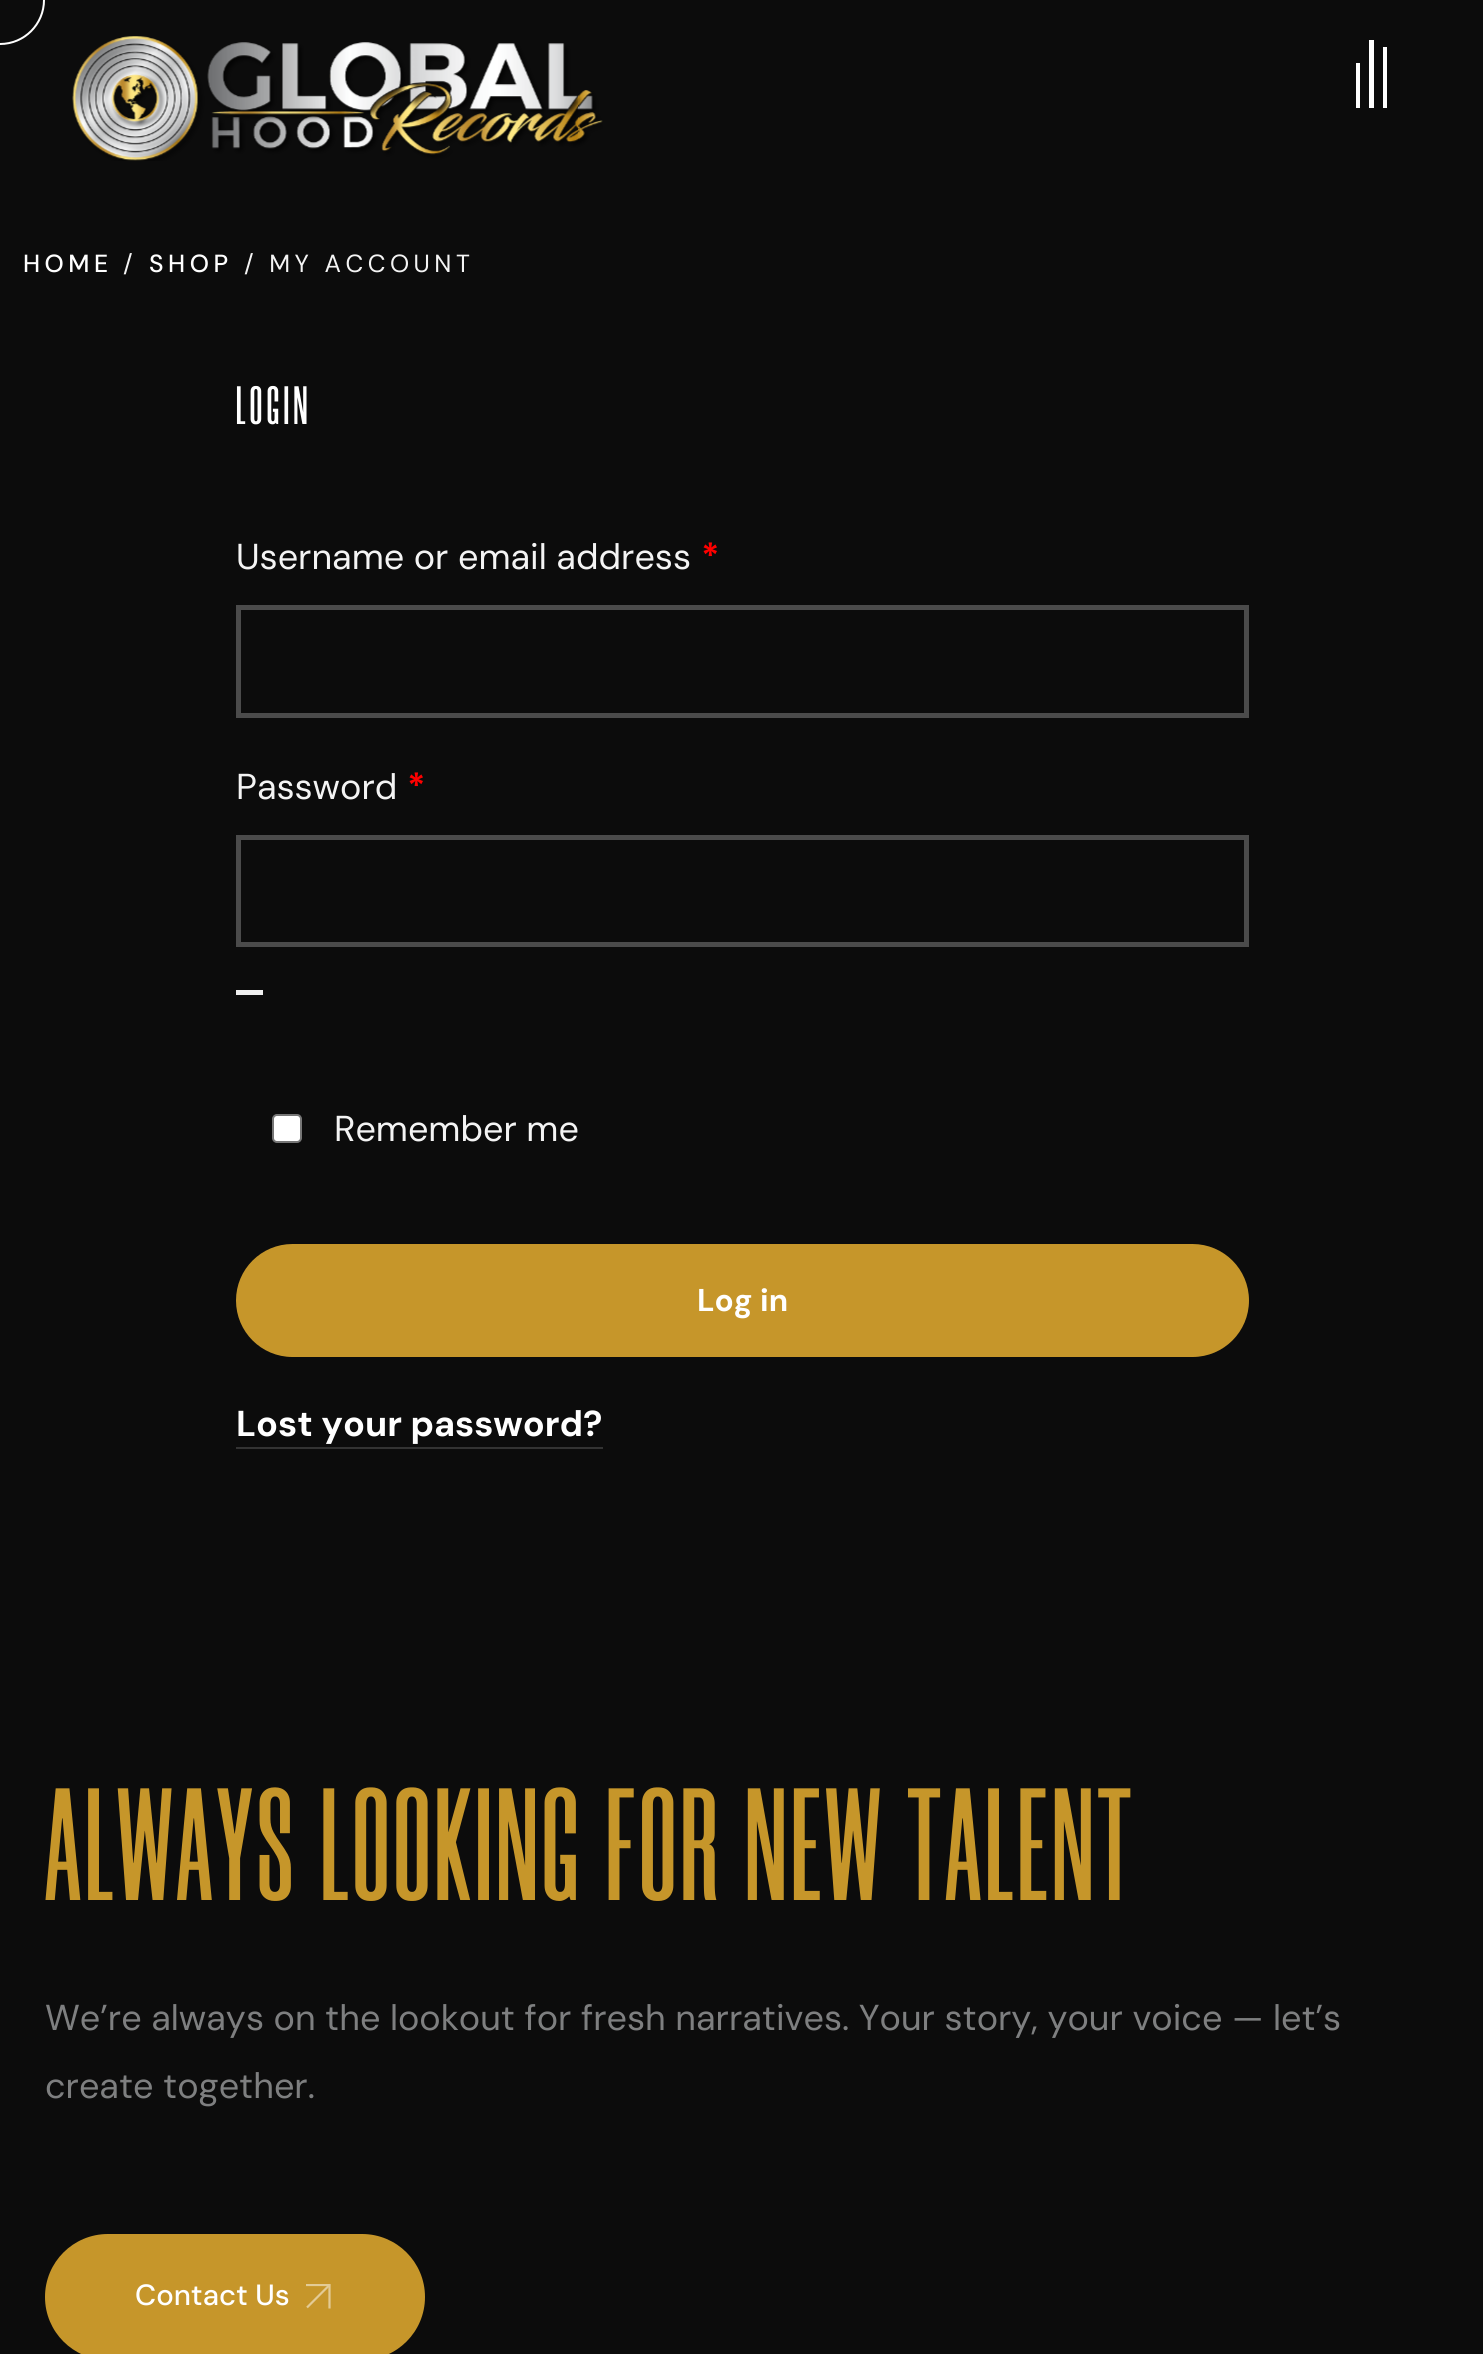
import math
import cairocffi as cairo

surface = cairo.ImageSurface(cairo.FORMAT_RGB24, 1483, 2354)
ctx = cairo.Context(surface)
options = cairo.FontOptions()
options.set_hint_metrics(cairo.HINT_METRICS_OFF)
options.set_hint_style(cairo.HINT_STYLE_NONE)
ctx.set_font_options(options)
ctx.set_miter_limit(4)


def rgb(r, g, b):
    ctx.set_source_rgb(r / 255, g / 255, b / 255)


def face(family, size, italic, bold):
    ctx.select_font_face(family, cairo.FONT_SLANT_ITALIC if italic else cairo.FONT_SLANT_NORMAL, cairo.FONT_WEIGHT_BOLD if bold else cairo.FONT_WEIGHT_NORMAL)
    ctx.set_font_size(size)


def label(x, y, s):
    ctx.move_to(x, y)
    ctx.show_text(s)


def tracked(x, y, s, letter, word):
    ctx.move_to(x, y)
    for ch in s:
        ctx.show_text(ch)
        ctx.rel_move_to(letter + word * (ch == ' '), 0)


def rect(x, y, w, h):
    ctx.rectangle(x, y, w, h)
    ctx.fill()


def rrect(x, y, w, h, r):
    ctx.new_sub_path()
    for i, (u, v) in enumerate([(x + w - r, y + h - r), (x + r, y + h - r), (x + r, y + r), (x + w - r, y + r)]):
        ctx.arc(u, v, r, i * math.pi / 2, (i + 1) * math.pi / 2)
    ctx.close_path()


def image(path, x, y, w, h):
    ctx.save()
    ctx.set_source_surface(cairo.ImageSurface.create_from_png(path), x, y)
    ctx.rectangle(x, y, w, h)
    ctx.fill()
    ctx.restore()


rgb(12, 12, 12)
ctx.paint()
ctx.arc(0, 0, 44, 0, 2 * math.pi)
rgb(255, 255, 255)
ctx.stroke()
image('image0.png', 72, 36, 531, 125)
rect(1356, 63, 4, 45)
rect(1369, 40, 5, 68)
rect(1383, 47, 4, 61)
face('DM Sans Medium', 24.75, 0, 0)
tracked(23, 272, 'HOME', 4.5, 0)
face('DM Sans', 24.75, 0, 0)
rgb(244, 244, 244)
tracked(123, 272, '/', 4.5, 0)
face('DM Sans Medium', 24.75, 0, 0)
rgb(255, 255, 255)
tracked(149, 272, 'SHOP', 4.5, 0)
face('DM Sans', 24.75, 0, 0)
rgb(244, 244, 244)
tracked(244, 272, '/ MY ACCOUNT', 4.5, 0)
face('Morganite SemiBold', 54, 0, 0)
rgb(255, 255, 255)
tracked(236, 424, 'LOGIN', 4.5, 0)
face('DM Sans', 36, 0, 0)
rgb(244, 244, 244)
label(236, 569, 'Username or email address')
face('DM Sans', 36, 0, 1)
rgb(255, 0, 0)
label(701, 569, '*')
ctx.rectangle(238.5, 607.5, 1008, 108)
rgb(75, 75, 75)
ctx.set_line_width(5)
ctx.stroke()
face('DM Sans', 36, 0, 0)
rgb(244, 244, 244)
label(236, 799, 'Password')
face('DM Sans', 36, 0, 1)
rgb(255, 0, 0)
label(407, 799, '*')
ctx.rectangle(238.5, 837.5, 1008, 107)
rgb(75, 75, 75)
ctx.stroke()
rgb(239, 239, 239)
rect(236, 990, 27, 5)
rgb(255, 255, 255)
rrect(273, 1115, 28, 27, 4)
ctx.fill_preserve()
rgb(118, 118, 118)
ctx.set_line_width(2)
ctx.stroke()
face('DM Sans', 36, 0, 0)
rgb(244, 244, 244)
label(334, 1141, 'Remember me')
rgb(198, 150, 42)
rrect(236, 1244, 1013, 113, 56.5)
ctx.fill()
face('DM Sans', 31.5, 0, 1)
rgb(255, 255, 255)
label(697, 1311, 'Log in')
face('DM Sans', 36, 0, 1)
label(236, 1436, 'Lost your password?')
rgb(51, 51, 51)
rect(236, 1447, 367, 2)
face('Morganite SemiBold', 159.75, 0, 0)
rgb(198, 150, 42)
tracked(45, 1900, 'ALWAYS LOOKING FOR NEW TALENT', 4.5, 0)
face('DM Sans', 36, 0, 0)
rgb(126, 127, 128)
label(45, 2030, 'We’re always on the lookout for fresh narratives. Your story, your voice — let’s')
label(45, 2098, 'create together.')
rgb(198, 150, 42)
rrect(45, 2234, 380, 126, 63)
ctx.fill()
face('DM Sans Medium', 29.25, 0, 0)
rgb(255, 255, 255)
label(135, 2305, 'Contact Us')
ctx.new_path()
ctx.move_to(329.5, 2285)
ctx.line_to(307, 2307.5)
rgb(227, 203, 149)
ctx.set_line_width(2.2)
ctx.stroke()
ctx.save()
ctx.rectangle(306, 2284, 25, 25)
ctx.clip()
ctx.new_path()
ctx.move_to(306, 2285)
ctx.line_to(329.5, 2285)
ctx.line_to(329.5, 2308.5)
ctx.stroke()
ctx.restore()
surface.write_to_png('render.png')
